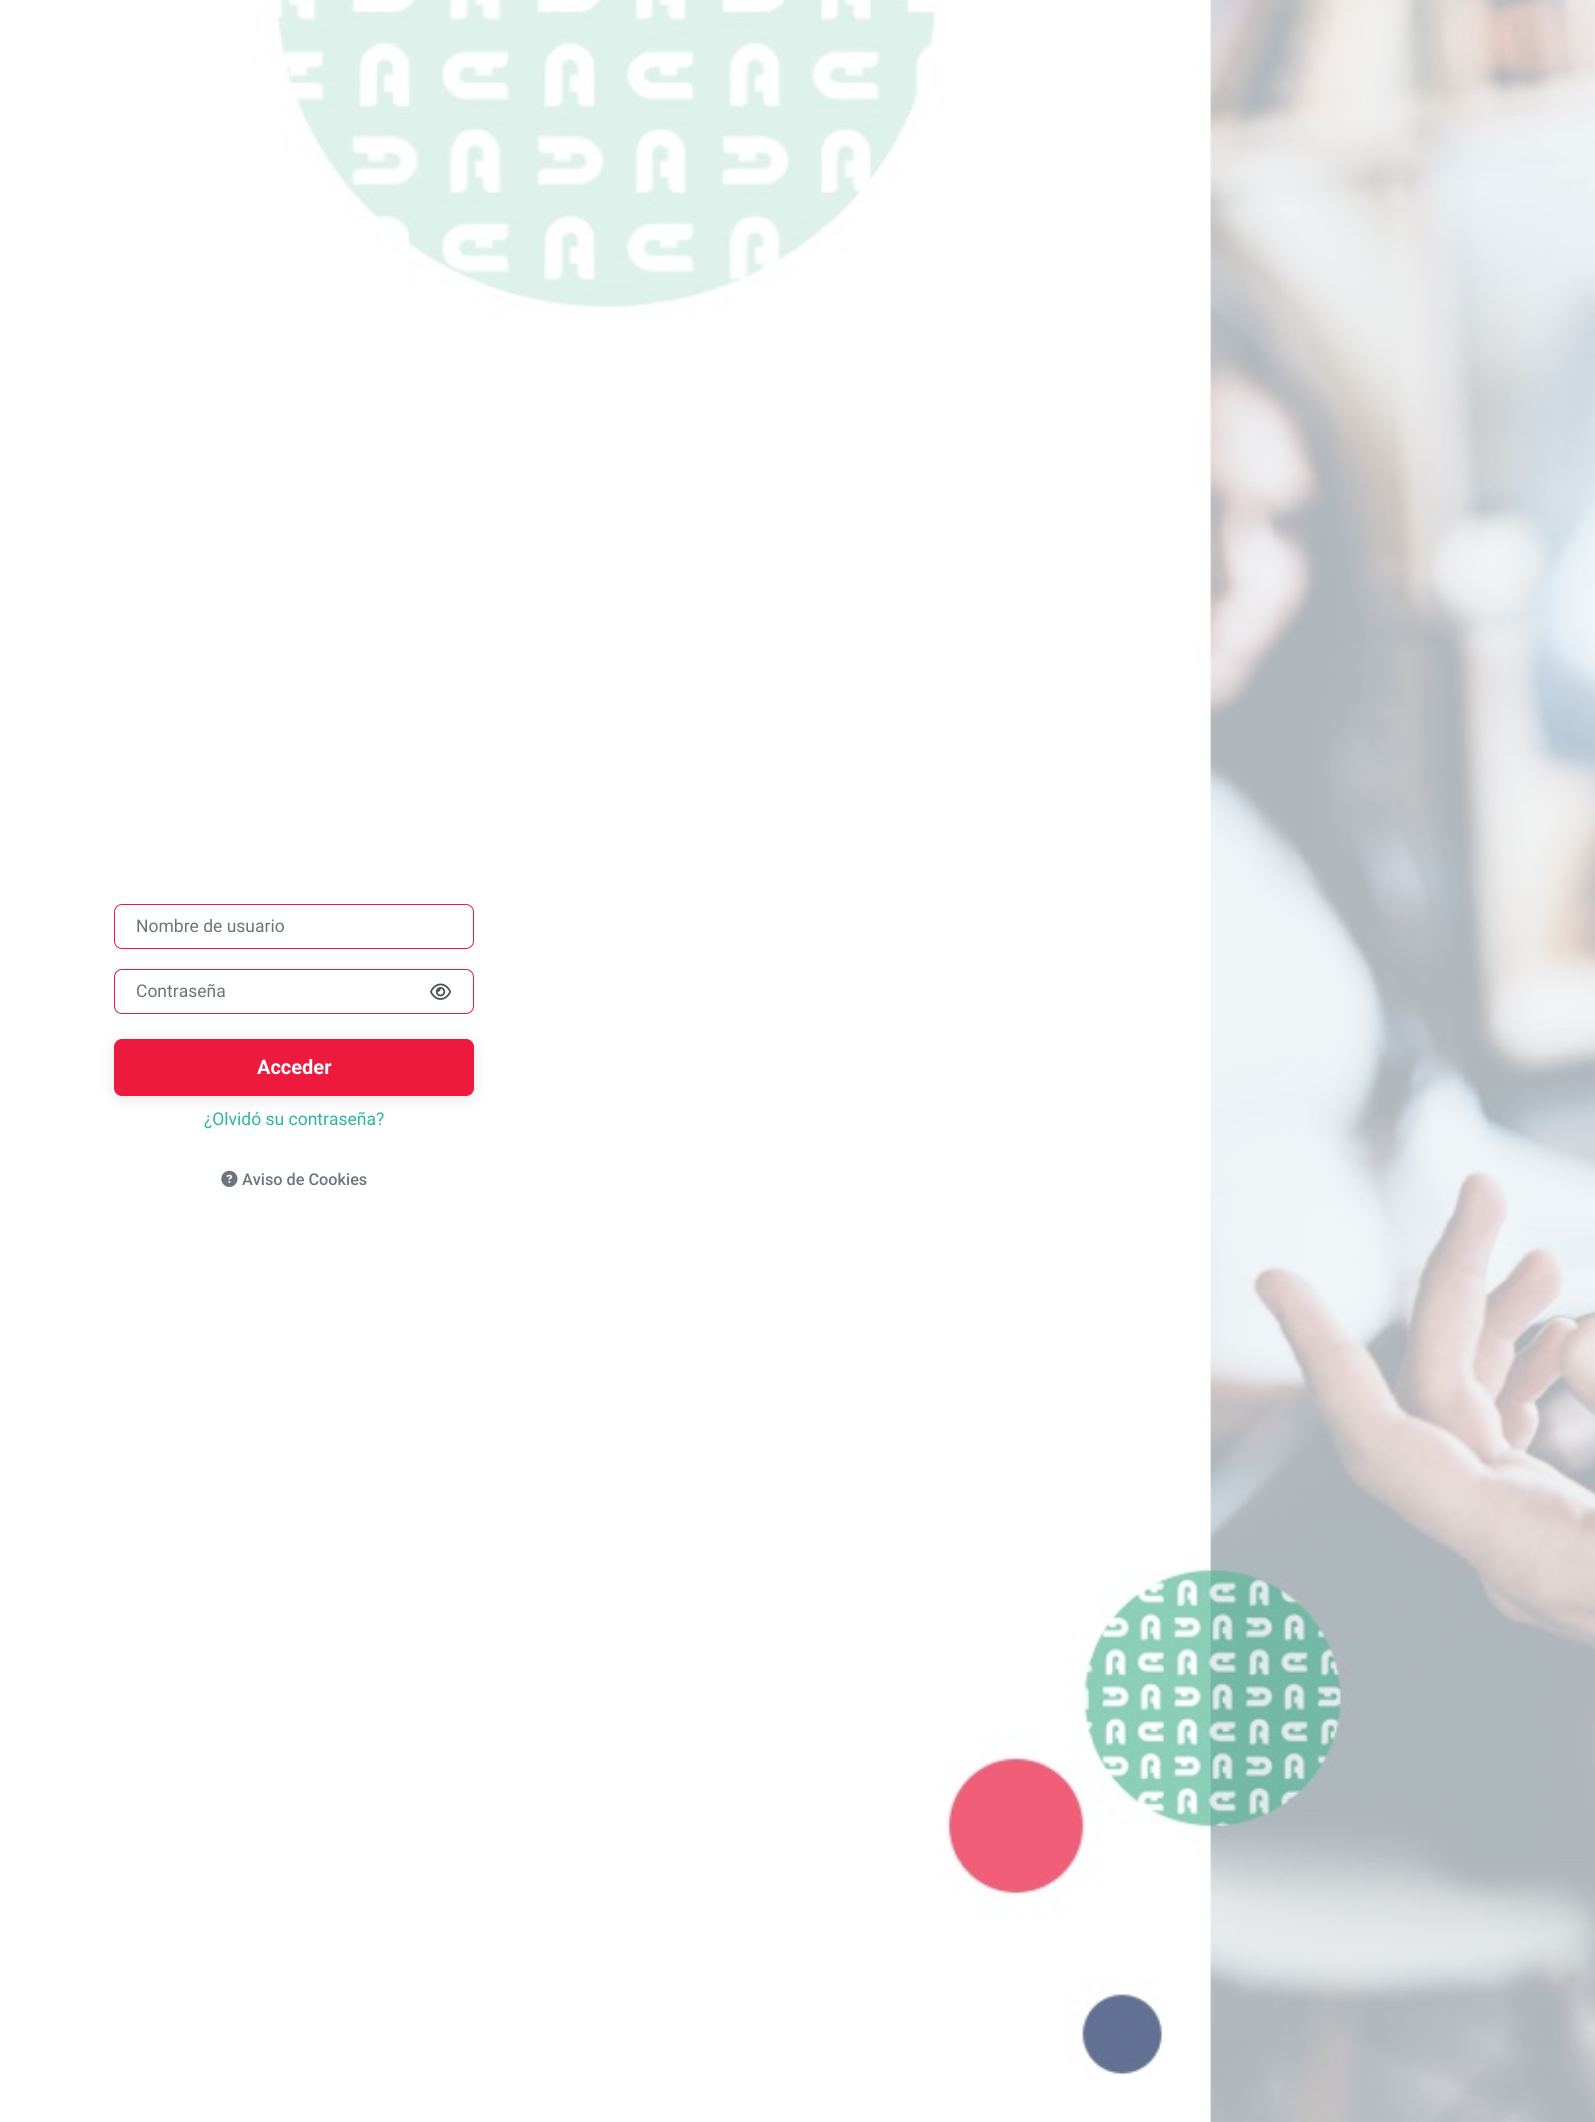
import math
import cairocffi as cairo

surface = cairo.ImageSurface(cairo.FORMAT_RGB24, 1595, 2122)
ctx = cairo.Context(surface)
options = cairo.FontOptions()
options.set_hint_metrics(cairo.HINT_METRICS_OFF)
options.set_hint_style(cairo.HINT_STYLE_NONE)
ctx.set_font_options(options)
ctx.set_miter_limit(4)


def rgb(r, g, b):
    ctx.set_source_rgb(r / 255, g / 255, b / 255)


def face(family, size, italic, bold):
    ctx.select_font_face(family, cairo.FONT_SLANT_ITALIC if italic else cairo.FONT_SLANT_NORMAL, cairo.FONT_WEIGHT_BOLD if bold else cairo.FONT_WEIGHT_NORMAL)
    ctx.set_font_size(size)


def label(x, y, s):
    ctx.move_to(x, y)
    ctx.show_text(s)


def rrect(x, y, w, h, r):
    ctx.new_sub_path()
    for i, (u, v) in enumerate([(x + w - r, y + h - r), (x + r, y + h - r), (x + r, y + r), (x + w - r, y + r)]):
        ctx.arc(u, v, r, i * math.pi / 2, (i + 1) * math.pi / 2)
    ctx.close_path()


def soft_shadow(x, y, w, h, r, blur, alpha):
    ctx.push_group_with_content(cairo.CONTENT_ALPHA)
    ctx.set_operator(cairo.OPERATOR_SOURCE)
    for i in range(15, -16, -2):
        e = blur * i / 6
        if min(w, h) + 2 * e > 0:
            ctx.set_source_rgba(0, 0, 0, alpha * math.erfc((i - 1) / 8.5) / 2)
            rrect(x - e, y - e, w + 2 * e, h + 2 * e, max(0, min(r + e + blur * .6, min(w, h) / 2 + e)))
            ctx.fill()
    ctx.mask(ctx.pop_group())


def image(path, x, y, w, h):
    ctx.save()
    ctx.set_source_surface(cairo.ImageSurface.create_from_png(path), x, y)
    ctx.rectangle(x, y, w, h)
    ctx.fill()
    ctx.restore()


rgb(255, 255, 255)
ctx.paint()
image('image0.png', 0, 0, 1595, 2122)
rrect(114.5, 904.5, 359, 44, 7.5)
rgb(237, 26, 61)
ctx.set_line_width(1)
ctx.stroke()
face('Roboto', 17.5, 0, 0)
rgb(108, 117, 125)
label(136, 932, 'Nombre de usuario')
rrect(114.5, 969.5, 359, 44, 7.5)
rgb(237, 26, 61)
ctx.stroke()
rgb(108, 117, 125)
label(136, 997, 'Contraseña')
image('image1.png', 430, 983, 22, 17)
rgb(0, 0, 0)
soft_shadow(114, 1041, 360, 58, 8, 7.5, 0.1)
rgb(237, 26, 61)
rrect(114.5, 1039.5, 359, 56, 7.5)
ctx.fill_preserve()
ctx.stroke()
face('Roboto', 20, 0, 1)
rgb(255, 255, 255)
label(257, 1074, 'Acceder')
face('Roboto', 17.5, 0, 0)
rgb(39, 185, 153)
label(204, 1125, '¿Olvidó su contraseña?')
image('image2.png', 221, 1170, 17, 17)
face('Roboto Medium', 16.25, 0, 0)
rgb(108, 117, 125)
label(242, 1185, 'Aviso de Cookies')
surface.write_to_png('render.png')
